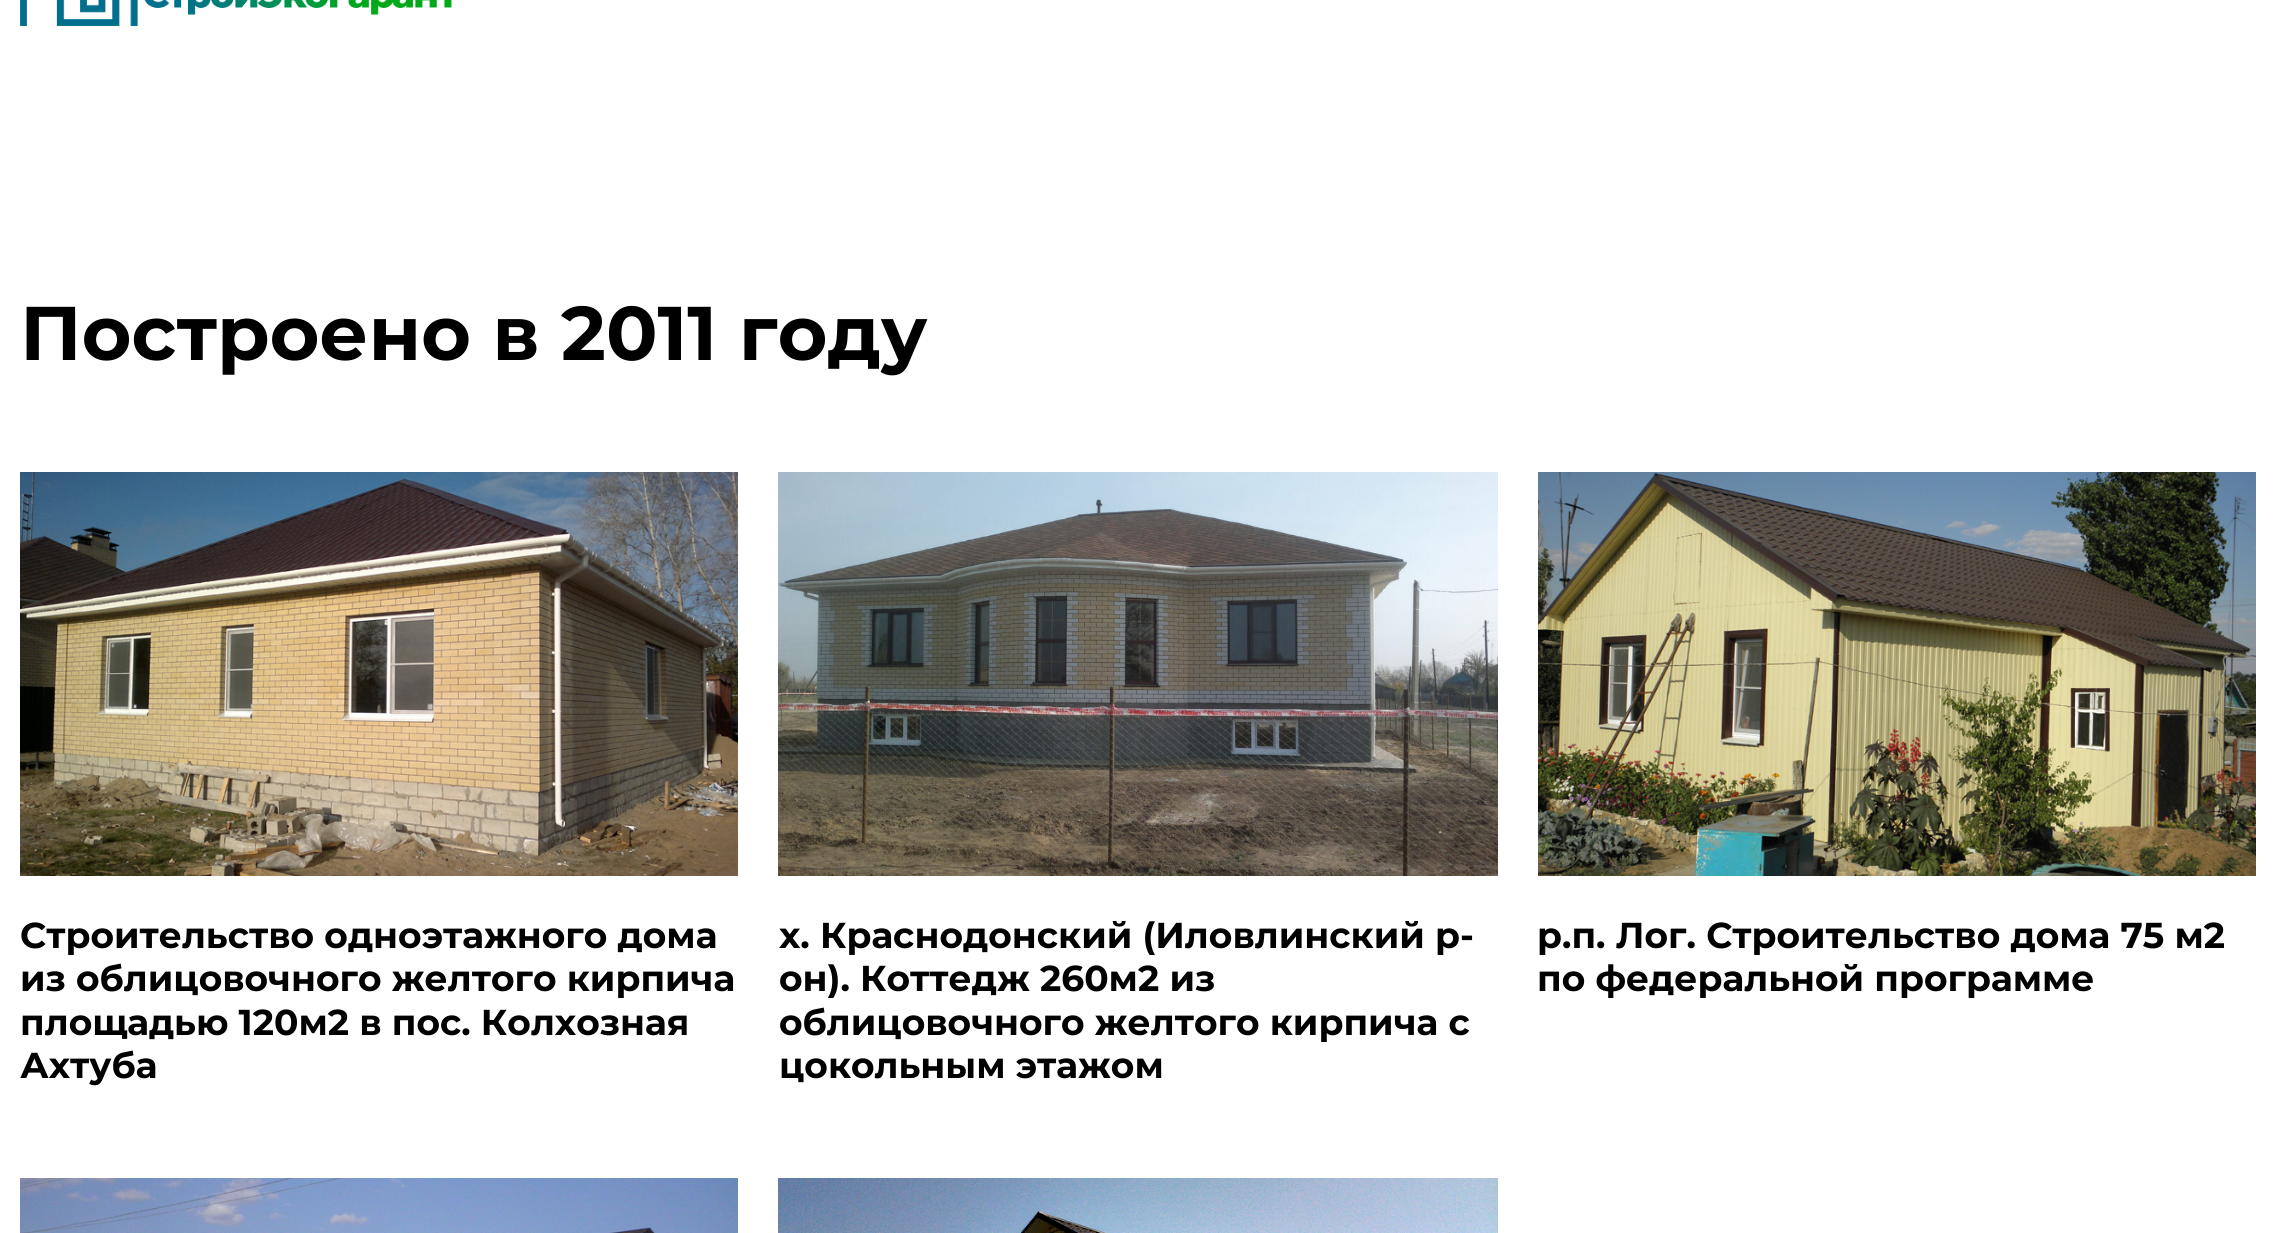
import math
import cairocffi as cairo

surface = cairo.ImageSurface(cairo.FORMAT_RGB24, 2275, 1233)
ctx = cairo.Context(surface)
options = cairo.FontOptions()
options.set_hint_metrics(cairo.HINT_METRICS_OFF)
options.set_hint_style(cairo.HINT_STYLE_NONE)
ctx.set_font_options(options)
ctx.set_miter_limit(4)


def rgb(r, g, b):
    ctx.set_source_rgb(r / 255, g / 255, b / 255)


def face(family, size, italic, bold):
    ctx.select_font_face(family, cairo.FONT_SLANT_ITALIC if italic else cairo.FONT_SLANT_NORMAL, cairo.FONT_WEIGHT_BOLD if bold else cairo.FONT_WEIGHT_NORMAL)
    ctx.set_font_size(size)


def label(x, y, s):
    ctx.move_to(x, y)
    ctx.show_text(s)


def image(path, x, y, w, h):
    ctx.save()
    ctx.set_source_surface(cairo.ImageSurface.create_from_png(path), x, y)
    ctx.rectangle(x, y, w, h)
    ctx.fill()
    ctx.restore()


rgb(255, 255, 255)
ctx.paint()
image('image0.png', 20, 0, 432, 26)
face('Montserrat', 76, 0, 1)
rgb(0, 0, 0)
label(20, 360, 'Построено в 2011 году')
image('image1.png', 20, 472, 718, 404)
face('Montserrat', 36, 0, 1)
label(20, 948, 'Строительство одноэтажного дома')
label(20, 991, 'из облицовочного желтого кирпича')
label(20, 1035, 'площадью 120м2 в пос. Колхозная')
label(20, 1078, 'Ахтуба')
image('image2.png', 778, 472, 720, 404)
label(779, 948, 'х. Краснодонский (Иловлинский р-')
label(779, 991, 'он). Коттедж 260м2 из')
label(779, 1035, 'облицовочного желтого кирпича с')
label(779, 1078, 'цокольным этажом')
image('image3.png', 1538, 472, 718, 404)
label(1537, 948, 'р.п. Лог. Строительство дома 75 м2')
label(1537, 991, 'по федеральной программе')
image('image4.png', 20, 1178, 718, 55)
image('image5.png', 778, 1178, 720, 55)
surface.write_to_png('render.png')
